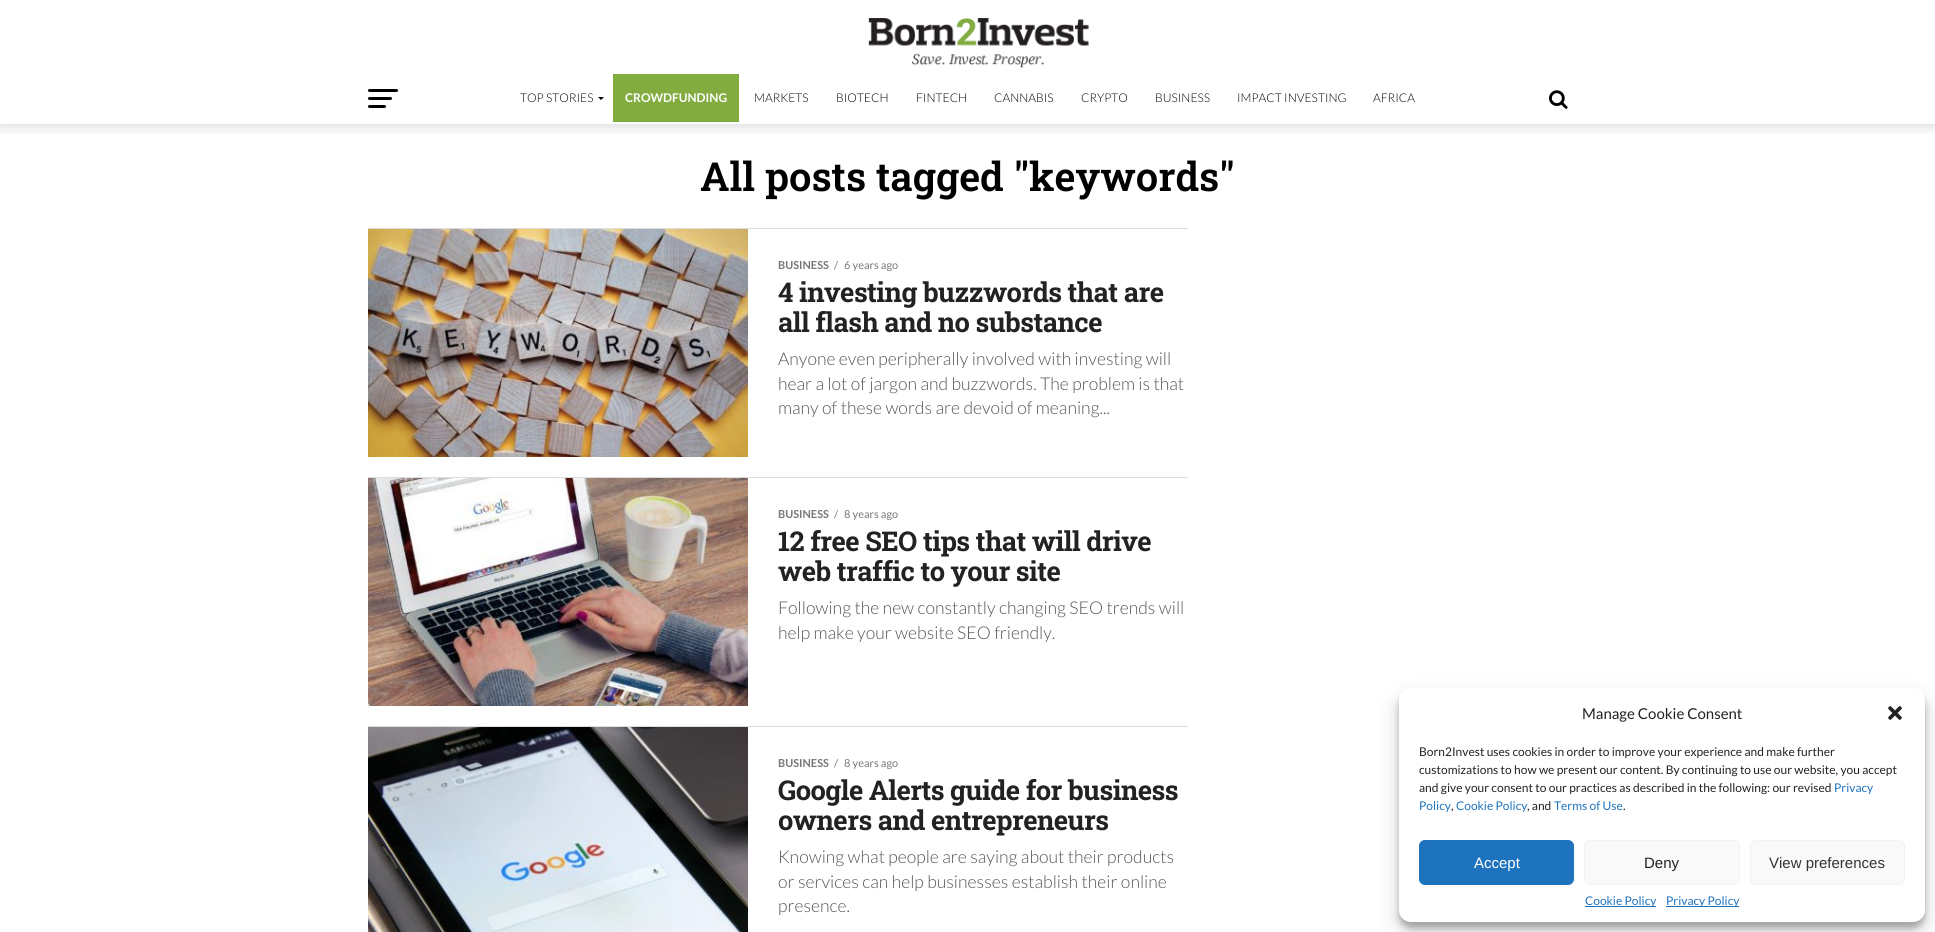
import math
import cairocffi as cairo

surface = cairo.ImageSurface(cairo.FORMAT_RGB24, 1935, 932)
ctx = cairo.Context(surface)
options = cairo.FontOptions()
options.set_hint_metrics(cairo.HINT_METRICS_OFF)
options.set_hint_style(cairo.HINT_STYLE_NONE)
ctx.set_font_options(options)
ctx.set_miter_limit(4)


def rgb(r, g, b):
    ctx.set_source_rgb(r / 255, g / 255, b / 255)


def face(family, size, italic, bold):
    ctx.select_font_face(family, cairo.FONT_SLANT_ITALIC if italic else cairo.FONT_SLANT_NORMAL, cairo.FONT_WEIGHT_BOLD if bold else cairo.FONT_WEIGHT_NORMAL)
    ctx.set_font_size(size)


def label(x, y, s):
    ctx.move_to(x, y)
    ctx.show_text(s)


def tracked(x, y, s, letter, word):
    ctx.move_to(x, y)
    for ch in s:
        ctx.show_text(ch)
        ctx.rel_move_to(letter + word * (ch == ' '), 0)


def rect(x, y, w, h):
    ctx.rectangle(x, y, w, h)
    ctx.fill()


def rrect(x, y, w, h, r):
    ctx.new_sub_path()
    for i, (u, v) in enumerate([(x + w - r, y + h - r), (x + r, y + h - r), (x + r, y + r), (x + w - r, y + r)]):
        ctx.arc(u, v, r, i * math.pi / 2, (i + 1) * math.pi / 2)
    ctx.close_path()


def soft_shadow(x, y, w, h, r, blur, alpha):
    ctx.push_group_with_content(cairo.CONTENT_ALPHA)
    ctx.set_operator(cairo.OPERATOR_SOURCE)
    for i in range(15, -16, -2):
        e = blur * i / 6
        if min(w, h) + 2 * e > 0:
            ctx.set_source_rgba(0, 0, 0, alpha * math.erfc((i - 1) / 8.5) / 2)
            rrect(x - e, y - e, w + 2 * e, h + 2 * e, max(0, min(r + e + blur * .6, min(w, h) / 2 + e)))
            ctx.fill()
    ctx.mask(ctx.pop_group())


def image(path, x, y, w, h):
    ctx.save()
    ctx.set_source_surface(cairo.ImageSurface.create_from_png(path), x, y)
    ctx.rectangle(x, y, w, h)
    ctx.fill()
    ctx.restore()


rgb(255, 255, 255)
ctx.paint()
ctx.save()
ctx.rectangle(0, 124, 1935, 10)
ctx.clip()
rgb(0, 0, 0)
soft_shadow(0, 74, 1935, 50, 0, 8, 0.2)
ctx.restore()
rgb(255, 255, 255)
rect(0, 61, 1935, 13)
image('image0.png', 868, 18, 221, 51)
rgb(0, 0, 0)
rrect(368, 89, 30, 3, 1.5)
ctx.fill()
rrect(368, 97, 24, 3, 1.5)
ctx.fill()
rrect(368, 105, 18, 3, 1.5)
ctx.fill()
face('Lato Light', 12, 0, 0)
label(520, 102, 'TOP STORIES')
ctx.new_path()
ctx.move_to(598, 97)
ctx.line_to(604, 97)
ctx.line_to(601, 100)
ctx.close_path()
ctx.fill()
rgb(130, 171, 64)
rect(613, 74, 126, 48)
face('Lato', 12, 0, 1)
rgb(255, 255, 255)
label(625, 102, 'CROWDFUNDING')
face('Lato Light', 12, 0, 0)
rgb(0, 0, 0)
label(754, 102, 'MARKETS')
label(836, 102, 'BIOTECH')
label(916, 102, 'FINTECH')
label(994, 102, 'CANNABIS')
label(1081, 102, 'CRYPTO')
label(1155, 102, 'BUSINESS')
label(1237, 102, 'IMPACT INVESTING')
label(1373, 102, 'AFRICA')
image('image1.png', 1549, 90, 19, 19)
face('Roboto Slab SemiBold', 40, 0, 0)
label(700, 191, 'All posts tagged "keywords"')
rgb(221, 221, 221)
rect(368, 228, 820, 1)
image('image2.png', 368, 229, 380, 228)
face('Lato', 11, 0, 1)
rgb(119, 119, 119)
label(778, 269, 'BUSINESS')
face('Lato', 11, 0, 0)
label(834, 269, '/')
label(844, 269, '6 years ago')
face('Roboto Slab', 27.25, 0, 1)
rgb(34, 34, 34)
tracked(778, 302, '4 investing buzzwords that are', -0.55, 0)
tracked(778, 332, 'all flash and no substance', -0.55, 0)
face('Lato Light', 17.6, 0, 0)
rgb(85, 85, 85)
label(778, 365, 'Anyone even peripherally involved with investing will')
label(778, 390, 'hear a lot of jargon and buzzwords. The problem is that')
label(778, 414, 'many of these words are devoid of meaning...')
rgb(221, 221, 221)
rect(368, 477, 820, 1)
image('image3.png', 368, 478, 380, 228)
face('Lato', 11, 0, 1)
rgb(119, 119, 119)
label(778, 518, 'BUSINESS')
face('Lato', 11, 0, 0)
label(834, 518, '/')
label(844, 518, '8 years ago')
face('Roboto Slab', 27.25, 0, 1)
rgb(34, 34, 34)
tracked(778, 551, '12 free SEO tips that will drive', -0.55, 0)
tracked(778, 581, 'web traffic to your site', -0.55, 0)
face('Lato Light', 17.6, 0, 0)
rgb(85, 85, 85)
label(778, 614, 'Following the new constantly changing SEO trends will')
label(778, 639, 'help make your website SEO friendly.')
rgb(221, 221, 221)
rect(368, 726, 820, 1)
image('image4.png', 368, 727, 380, 205)
face('Lato', 11, 0, 1)
rgb(119, 119, 119)
label(778, 767, 'BUSINESS')
face('Lato', 11, 0, 0)
label(834, 767, '/')
label(844, 767, '8 years ago')
face('Roboto Slab', 27.25, 0, 1)
rgb(34, 34, 34)
tracked(778, 800, 'Google Alerts guide for business', -0.55, 0)
tracked(778, 830, 'owners and entrepreneurs', -0.55, 0)
face('Lato Light', 17.6, 0, 0)
rgb(85, 85, 85)
label(778, 863, 'Knowing what people are saying about their products')
label(778, 888, 'or services can help businesses establish their online')
label(778, 912, 'presence.')
rgb(0, 0, 0)
soft_shadow(1399, 694, 526, 234, 12, 3, 0.23)
soft_shadow(1399, 698, 526, 234, 12, 10, 0.19)
rgb(255, 255, 255)
rrect(1399, 688, 526, 234, 12)
ctx.fill()
face('Lato', 15, 0, 0)
rgb(34, 34, 34)
label(1582, 719, 'Manage Cookie Consent')
image('image5.png', 1888, 706, 14, 14)
face('Lato', 12, 0, 0)
label(1419, 756, 'Born2Invest uses cookies in order to improve your experience and make further')
label(1419, 774, 'customizations to how we present our content. By continuing to use our website, you accept')
label(1419, 792, 'and give your consent to our practices as described in the following: our revised')
rgb(30, 115, 190)
label(1834, 792, 'Privacy')
label(1419, 810, 'Policy')
rgb(34, 34, 34)
label(1451, 810, ',')
rgb(30, 115, 190)
label(1456, 810, 'Cookie Policy')
rgb(34, 34, 34)
label(1527, 810, ', and')
rgb(30, 115, 190)
label(1554, 810, 'Terms of Use')
rgb(34, 34, 34)
label(1623, 810, '.')
rgb(30, 115, 190)
rrect(1419.5, 840.5, 154, 44, 5.5)
ctx.fill_preserve()
ctx.set_line_width(1)
ctx.stroke()
face('Liberation Sans', 15, 0, 0)
rgb(255, 255, 255)
label(1474, 868, 'Accept')
rgb(249, 249, 249)
rrect(1584.5, 840.5, 155, 44, 5.5)
ctx.fill_preserve()
rgb(242, 242, 242)
ctx.stroke()
rgb(34, 34, 34)
label(1644, 868, 'Deny')
rgb(249, 249, 249)
rrect(1750.5, 840.5, 154, 44, 5.5)
ctx.fill_preserve()
rgb(242, 242, 242)
ctx.stroke()
rgb(51, 51, 51)
label(1769, 868, 'View preferences')
rgb(30, 115, 190)
rect(1585, 906, 71, 1)
face('Lato', 12, 0, 0)
label(1585, 905, 'Cookie Policy')
rect(1666, 906, 73, 1)
label(1666, 905, 'Privacy Policy')
surface.write_to_png('render.png')
